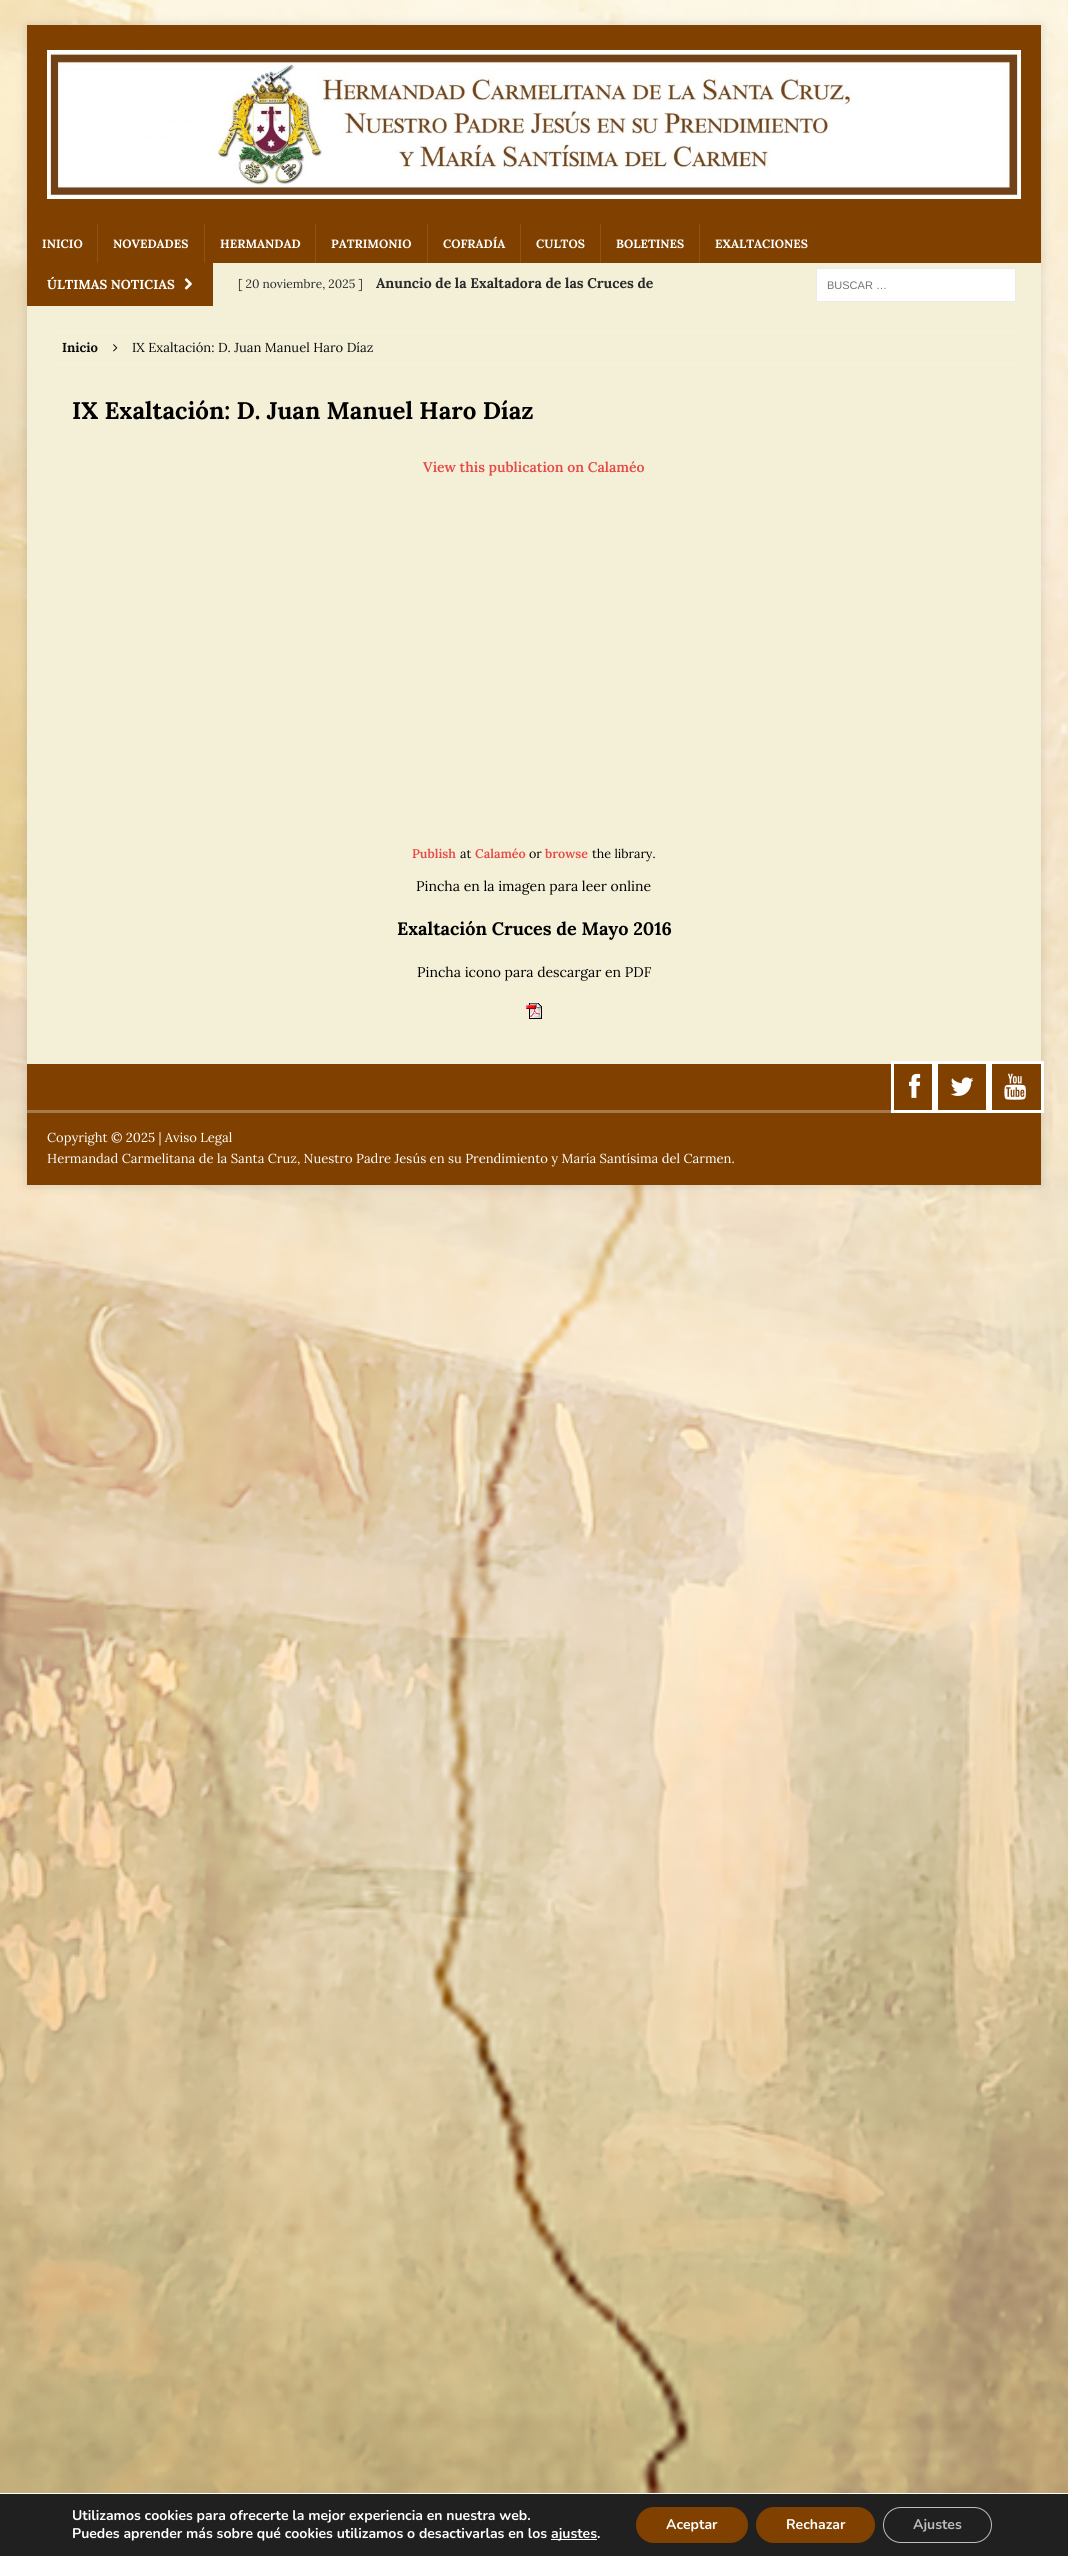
import math
import cairocffi as cairo

surface = cairo.ImageSurface(cairo.FORMAT_RGB24, 1068, 2556)
ctx = cairo.Context(surface)
options = cairo.FontOptions()
options.set_hint_metrics(cairo.HINT_METRICS_OFF)
options.set_hint_style(cairo.HINT_STYLE_NONE)
ctx.set_font_options(options)
ctx.set_miter_limit(4)


def rgb(r, g, b):
    ctx.set_source_rgb(r / 255, g / 255, b / 255)


def face(family, size, italic, bold):
    ctx.select_font_face(family, cairo.FONT_SLANT_ITALIC if italic else cairo.FONT_SLANT_NORMAL, cairo.FONT_WEIGHT_BOLD if bold else cairo.FONT_WEIGHT_NORMAL)
    ctx.set_font_size(size)


def label(x, y, s):
    ctx.move_to(x, y)
    ctx.show_text(s)


def rect(x, y, w, h):
    ctx.rectangle(x, y, w, h)
    ctx.fill()


def rrect(x, y, w, h, r):
    ctx.new_sub_path()
    for i, (u, v) in enumerate([(x + w - r, y + h - r), (x + r, y + h - r), (x + r, y + r), (x + w - r, y + r)]):
        ctx.arc(u, v, r, i * math.pi / 2, (i + 1) * math.pi / 2)
    ctx.close_path()


def soft_shadow(x, y, w, h, r, blur, alpha):
    ctx.push_group_with_content(cairo.CONTENT_ALPHA)
    ctx.set_operator(cairo.OPERATOR_SOURCE)
    for i in range(15, -16, -2):
        e = blur * i / 6
        if min(w, h) + 2 * e > 0:
            ctx.set_source_rgba(0, 0, 0, alpha * math.erfc((i - 1) / 8.5) / 2)
            rrect(x - e, y - e, w + 2 * e, h + 2 * e, max(0, min(r + e + blur * .6, min(w, h) / 2 + e)))
            ctx.fill()
    ctx.mask(ctx.pop_group())


def image(path, x, y, w, h):
    ctx.save()
    ctx.set_source_surface(cairo.ImageSurface.create_from_png(path), x, y)
    ctx.rectangle(x, y, w, h)
    ctx.fill()
    ctx.restore()


rgb(255, 255, 255)
ctx.paint()
image('image0.png', 0, 0, 1068, 2493)
rgb(50, 50, 50)
soft_shadow(27, 25, 1014, 1160, 0, 5, 0.17)
rgb(128, 64, 0)
rect(27, 25, 1014, 238)
image('image1.png', 47, 50, 974, 149)
face('Lora', 12, 0, 1)
rgb(255, 255, 255)
label(42, 248, 'INICIO')
rgb(141, 83, 26)
rect(97, 224, 1, 39)
rgb(255, 255, 255)
label(113, 248, 'NOVEDADES')
rgb(141, 83, 26)
rect(204, 224, 1, 39)
rgb(255, 255, 255)
label(220, 248, 'HERMANDAD')
rgb(141, 83, 26)
rect(315, 224, 1, 39)
rgb(255, 255, 255)
label(331, 248, 'PATRIMONIO')
rgb(141, 83, 26)
rect(427, 224, 1, 39)
rgb(255, 255, 255)
label(443, 248, 'COFRADÍA')
rgb(141, 83, 26)
rect(520, 224, 1, 39)
rgb(255, 255, 255)
label(536, 248, 'CULTOS')
rgb(141, 83, 26)
rect(600, 224, 1, 39)
rgb(255, 255, 255)
label(616, 248, 'BOLETINES')
rgb(141, 83, 26)
rect(699, 224, 1, 39)
rgb(255, 255, 255)
label(715, 248, 'EXALTACIONES')
rgb(244, 240, 215)
rect(27, 263, 1014, 801)
rgb(128, 64, 0)
rect(27, 263, 186, 43)
face('Lora', 13, 0, 1)
rgb(255, 255, 255)
label(47, 289, 'ÚLTIMAS NOTICIAS')
image('image2.png', 184, 278, 8, 12)
face('Lora', 12, 0, 0)
rgb(42, 42, 42)
label(238, 288, '[ 20 noviembre, 2025 ]')
face('Lora', 14, 0, 1)
label(376, 288, 'Anuncio de la Exaltadora de las Cruces de')
rgb(255, 255, 255)
ctx.rectangle(816.5, 268.5, 199, 33)
ctx.fill_preserve()
rgb(235, 235, 235)
ctx.set_line_width(1)
ctx.stroke()
face('Liberation Sans', 11, 0, 0)
rgb(117, 117, 117)
label(827, 289, 'BUSCAR …')
ctx.new_path()
ctx.move_to(52, 332.5)
ctx.line_to(1016, 332.5)
rgb(247, 245, 227)
ctx.set_dash([1, 1])
ctx.stroke()
ctx.new_path()
ctx.move_to(52, 364.5)
ctx.line_to(1016, 364.5)
ctx.stroke()
face('Lora', 13, 0, 1)
rgb(10, 10, 10)
label(62, 352, 'Inicio')
image('image3.png', 113, 344, 5, 8)
face('Lora', 13, 0, 0)
label(132, 352, 'IX Exaltación: D. Juan Manuel Haro Díaz')
face('Lora', 24, 0, 1)
rgb(0, 0, 0)
label(72, 419, 'IX Exaltación: D. Juan Manuel Haro Díaz')
face('Lora SemiBold', 14, 0, 0)
rgb(230, 73, 70)
label(423, 472, 'View this publication on Calaméo')
face('Lora SemiBold', 12.5, 0, 0)
label(412, 858, 'Publish')
face('Lora', 12.5, 0, 0)
rgb(0, 0, 0)
label(460, 858, 'at')
face('Lora SemiBold', 12.5, 0, 0)
rgb(230, 73, 70)
label(475, 858, 'Calaméo')
face('Lora', 12.5, 0, 0)
rgb(0, 0, 0)
label(529, 858, 'or')
face('Lora SemiBold', 12.5, 0, 0)
rgb(230, 73, 70)
label(545, 858, 'browse')
face('Lora', 12.5, 0, 0)
rgb(0, 0, 0)
label(592, 858, 'the library.')
face('Lora', 14, 0, 0)
label(416, 891, 'Pincha en la imagen para leer online')
face('Lora', 18, 0, 1)
label(397, 935, 'Exaltación Cruces de Mayo 2016')
face('Lora', 14, 0, 0)
label(417, 977, 'Pincha icono para descargar en PDF')
image('image4.png', 526, 1003, 16, 16)
rgb(128, 64, 0)
rect(27, 1064, 1014, 46)
image('image5.png', 909, 1073, 12, 25)
ctx.rectangle(892.5, 1062.5, 44, 49)
rgb(255, 255, 255)
ctx.set_line_width(3)
ctx.set_dash([])
ctx.stroke()
image('image6.png', 950, 1077, 24, 19)
ctx.rectangle(933.5, 1062.5, 57, 49)
ctx.stroke()
image('image7.png', 1004, 1073, 22, 27)
ctx.rectangle(987.5, 1062.5, 55, 49)
ctx.stroke()
rgb(128, 64, 0)
rect(27, 1113, 1014, 72)
rgb(166, 121, 77)
rect(27, 1110, 864, 3)
face('Lora', 13, 0, 0)
rgb(255, 255, 255)
label(47, 1142, 'Copyright © 2025 | Aviso Legal')
label(47, 1163, 'Hermandad Carmelitana de la Santa Cruz, Nuestro Padre Jesús en su Prendimiento y María Santísima del Carmen.')
rgb(32, 32, 32)
rect(0, 2494, 1068, 62)
face('Nunito', 14, 0, 1)
rgb(255, 255, 255)
label(72, 2520, 'Utilizamos cookies para ofrecerte la mejor experiencia en nuestra web.')
label(72, 2538, 'Puedes aprender más sobre qué cookies utilizamos o desactivarlas en los')
rect(551, 2539, 46, 1)
label(551, 2538, 'ajustes.')
rgb(128, 64, 0)
rrect(636, 2507, 112, 36, 18)
ctx.fill()
rgb(255, 255, 255)
label(666, 2529, 'Aceptar')
rgb(128, 64, 0)
rrect(756, 2507, 119, 36, 18)
ctx.fill()
rgb(255, 255, 255)
label(786, 2529, 'Rechazar')
rrect(883.5, 2507.5, 108, 35, 17.5)
rgb(188, 188, 188)
ctx.set_line_width(1)
ctx.stroke()
label(913, 2529, 'Ajustes')
surface.write_to_png('render.png')
